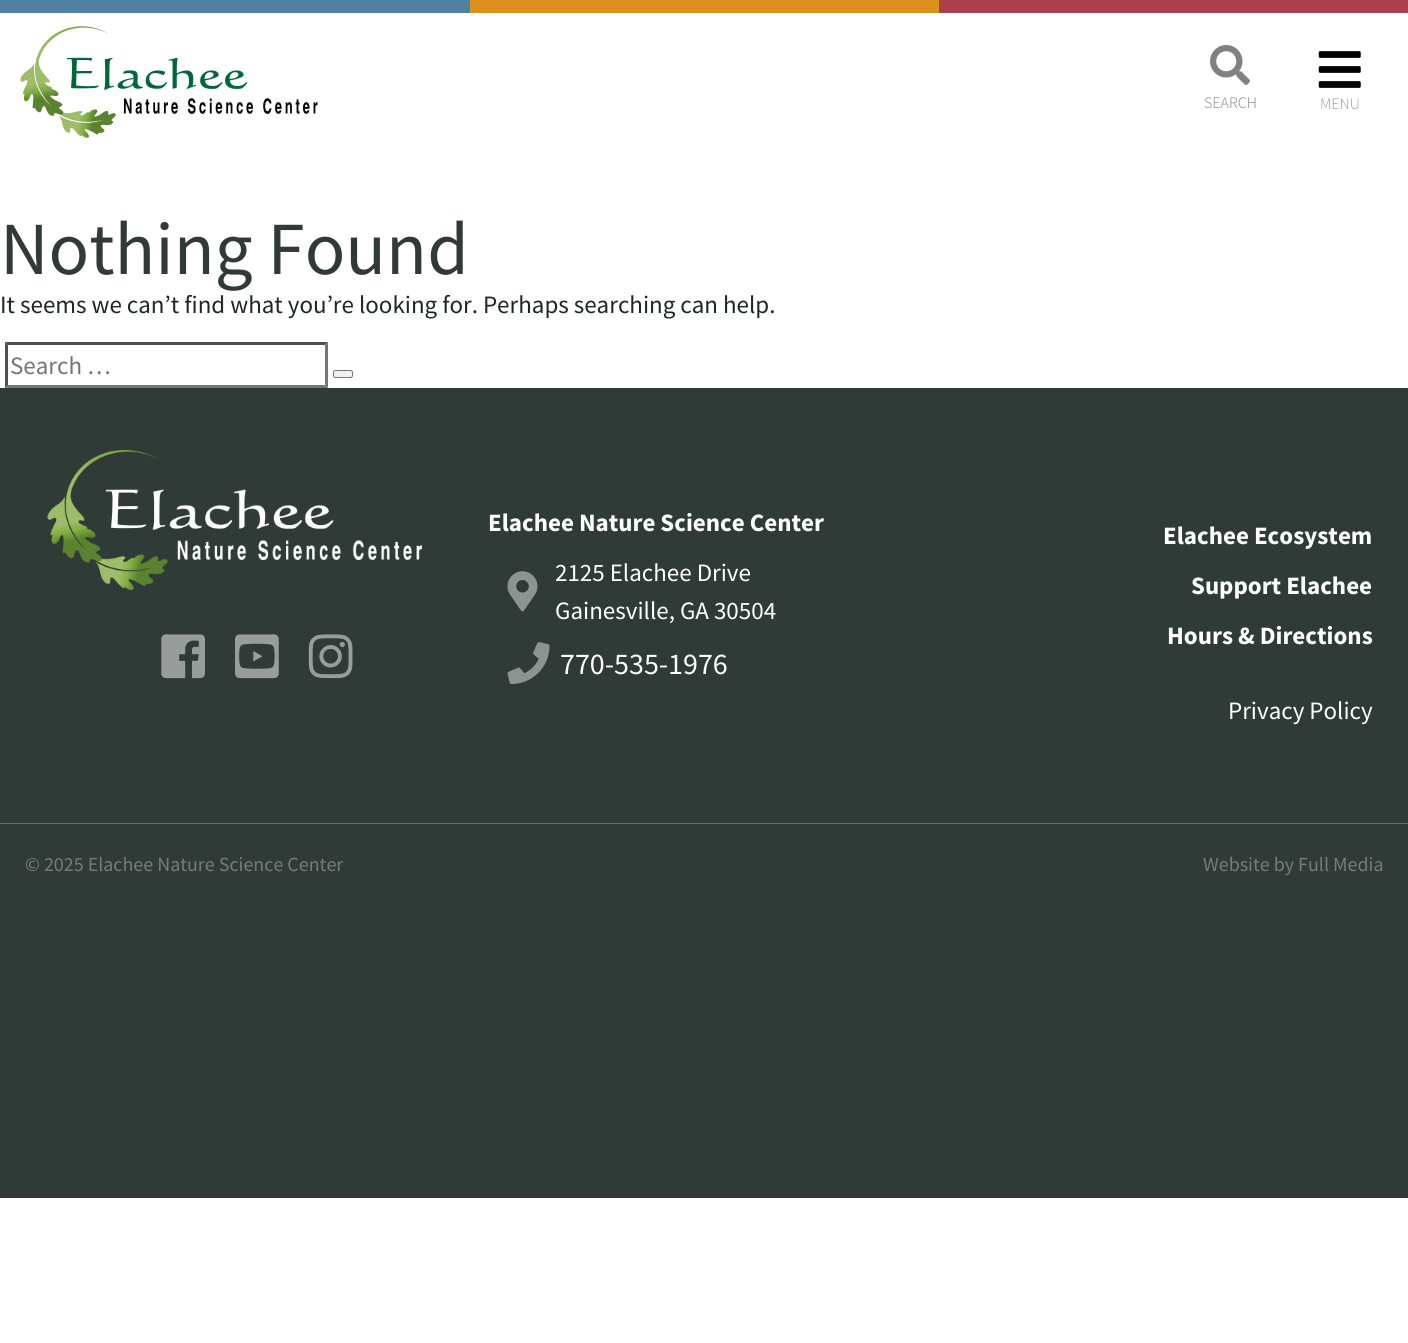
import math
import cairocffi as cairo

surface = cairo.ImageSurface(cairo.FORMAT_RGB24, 1408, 1343)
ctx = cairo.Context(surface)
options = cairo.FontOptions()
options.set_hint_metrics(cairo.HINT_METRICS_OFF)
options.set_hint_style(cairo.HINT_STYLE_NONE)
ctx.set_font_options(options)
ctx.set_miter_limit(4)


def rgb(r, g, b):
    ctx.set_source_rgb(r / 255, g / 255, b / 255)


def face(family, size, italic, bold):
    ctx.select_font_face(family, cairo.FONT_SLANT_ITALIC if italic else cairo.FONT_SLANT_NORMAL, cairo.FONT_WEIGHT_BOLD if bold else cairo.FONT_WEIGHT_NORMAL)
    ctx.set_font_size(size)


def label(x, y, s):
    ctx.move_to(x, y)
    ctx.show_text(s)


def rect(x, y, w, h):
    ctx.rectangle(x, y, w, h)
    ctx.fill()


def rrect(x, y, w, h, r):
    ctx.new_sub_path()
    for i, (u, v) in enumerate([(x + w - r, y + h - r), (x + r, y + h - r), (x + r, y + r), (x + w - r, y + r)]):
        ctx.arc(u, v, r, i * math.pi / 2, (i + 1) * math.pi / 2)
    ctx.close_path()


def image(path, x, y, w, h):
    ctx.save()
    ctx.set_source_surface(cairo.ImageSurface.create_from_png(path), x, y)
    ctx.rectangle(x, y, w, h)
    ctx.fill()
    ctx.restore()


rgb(255, 255, 255)
ctx.paint()
rgb(81, 129, 161)
rect(0, 0, 470, 13)
rgb(218, 145, 30)
rect(470, 0, 469, 13)
rgb(173, 63, 74)
rect(939, 0, 469, 13)
image('image0.png', 20, 26, 298, 112)
image('image1.png', 1210, 45, 40, 40)
face('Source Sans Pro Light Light', 16, 0, 0)
rgb(130, 129, 129)
label(1204, 108, 'SEARCH')
image('image2.png', 1318, 51, 43, 37)
rgb(153, 153, 153)
label(1320, 109, 'MENU')
face('Source Sans Pro', 75, 0, 0)
rgb(48, 58, 54)
label(0, 274, 'Nothing Found')
face('Source Sans Pro', 25, 0, 0)
rgb(33, 37, 41)
label(0, 313, 'It seems we can’t find what you’re looking for. Perhaps searching can help.')
rgb(79, 79, 79)
ctx.new_path()
ctx.move_to(5, 342)
ctx.line_to(328, 342)
ctx.line_to(325, 345)
ctx.line_to(8, 345)
ctx.close_path()
ctx.fill()
rgb(118, 118, 118)
ctx.new_path()
ctx.move_to(328, 342)
ctx.line_to(328, 388)
ctx.line_to(325, 385)
ctx.line_to(325, 345)
ctx.close_path()
ctx.fill()
ctx.new_path()
ctx.move_to(328, 388)
ctx.line_to(5, 388)
ctx.line_to(8, 385)
ctx.line_to(325, 385)
ctx.close_path()
ctx.fill()
rgb(79, 79, 79)
ctx.new_path()
ctx.move_to(5, 388)
ctx.line_to(5, 342)
ctx.line_to(8, 345)
ctx.line_to(8, 385)
ctx.close_path()
ctx.fill()
rgb(117, 117, 117)
label(10, 374, 'Search …')
rgb(239, 239, 239)
rrect(333.5, 370.5, 19, 7, 2)
ctx.fill_preserve()
rgb(118, 118, 118)
ctx.set_line_width(1)
ctx.stroke()
rgb(48, 58, 54)
rect(0, 388, 1408, 435)
image('image3.png', 47, 450, 375, 140)
image('image4.png', 161, 634, 44, 45)
image('image5.png', 235, 634, 44, 45)
image('image6.png', 308, 634, 45, 45)
face('Source Sans Pro', 25, 0, 1)
rgb(255, 255, 255)
label(488, 531, 'Elachee Nature Science Center')
image('image7.png', 507, 571, 31, 41)
face('Source Sans Pro', 25, 0, 0)
label(555, 581, '2125 Elachee Drive')
label(555, 619, 'Gainesville, GA 30504')
image('image8.png', 507, 642, 43, 42)
face('Source Sans Pro', 30, 0, 0)
label(560, 674, '770-535-1976')
face('Source Sans Pro', 25, 0, 1)
label(1163, 544, 'Elachee Ecosystem')
label(1191, 594, 'Support Elachee')
label(1167, 644, 'Hours & Directions')
face('Source Sans Pro', 25, 0, 0)
label(1228, 719, 'Privacy Policy')
rgb(48, 58, 54)
rect(0, 824, 1408, 374)
rgb(94, 114, 106)
rect(0, 823, 1408, 1)
face('Source Sans Pro', 20, 0, 0)
rgb(117, 124, 121)
label(25, 871, '© 2025 Elachee Nature Science Center')
label(1203, 871, 'Website by Full Media')
surface.write_to_png('render.png')
